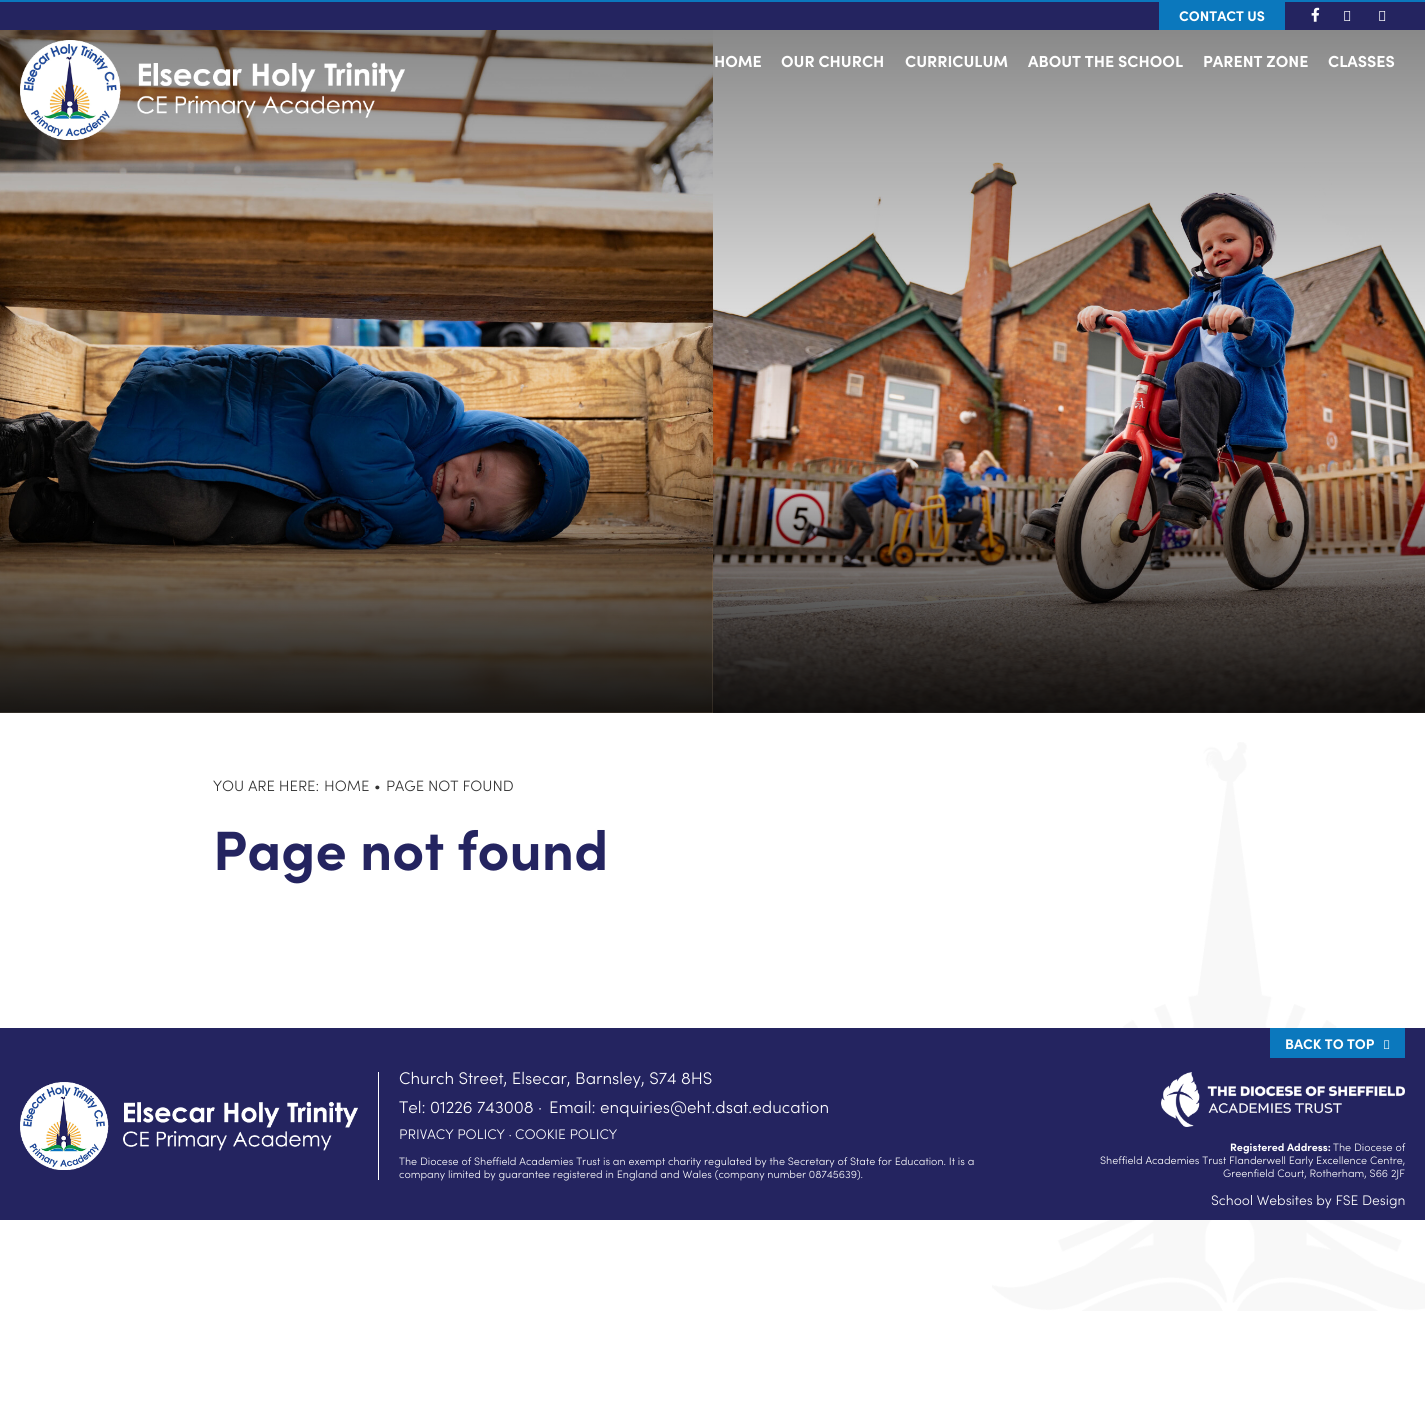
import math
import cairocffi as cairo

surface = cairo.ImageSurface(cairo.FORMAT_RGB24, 1425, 1425)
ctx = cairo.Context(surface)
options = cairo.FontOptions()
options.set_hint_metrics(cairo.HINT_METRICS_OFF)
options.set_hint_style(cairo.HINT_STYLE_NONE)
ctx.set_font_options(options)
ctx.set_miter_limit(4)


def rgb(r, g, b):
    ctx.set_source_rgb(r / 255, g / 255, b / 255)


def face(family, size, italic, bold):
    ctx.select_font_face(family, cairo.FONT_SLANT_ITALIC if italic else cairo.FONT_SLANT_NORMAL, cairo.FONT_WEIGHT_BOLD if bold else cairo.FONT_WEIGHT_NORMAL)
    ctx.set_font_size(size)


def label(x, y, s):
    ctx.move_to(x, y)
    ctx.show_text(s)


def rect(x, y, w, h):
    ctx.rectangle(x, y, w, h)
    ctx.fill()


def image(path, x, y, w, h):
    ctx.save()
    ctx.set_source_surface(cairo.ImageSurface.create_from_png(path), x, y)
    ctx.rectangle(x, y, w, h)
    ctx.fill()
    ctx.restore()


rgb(255, 255, 255)
ctx.paint()
rgb(11, 120, 189)
rect(0, 0, 1425, 2)
rgb(36, 36, 96)
rect(0, 2, 1425, 28)
rgb(11, 120, 189)
rect(1159, 2, 126, 28)
face('Sofia', 14, 0, 1)
rgb(255, 255, 255)
label(1179, 21, 'CONTACT US')
image('image0.png', 1311, 7, 9, 15)
image('image1.png', 1344, 11, 7, 10)
image('image1.png', 1379, 11, 7, 10)
image('image3.png', 0, 30, 713, 683)
image('image4.png', 713, 162, 712, 551)
gradient = cairo.LinearGradient(713, 713, 713, 0)
gradient.add_color_stop_rgba(0, 0, 0, 0, 0.5)
gradient.add_color_stop_rgba(0.35, 0, 0, 0, 0)
gradient.add_color_stop_rgba(0.4, 0, 0, 0, 0)
gradient.add_color_stop_rgba(1, 0, 0, 0, 0.5)
ctx.set_source(gradient)
rect(0, 30, 1425, 683)
image('image2.png', 20, 40, 385, 100)
face('Sofia', 16, 0, 1)
rgb(255, 255, 255)
label(714, 67, 'HOME')
label(781, 67, 'OUR CHURCH')
label(905, 67, 'CURRICULUM')
label(1028, 67, 'ABOUT THE SCHOOL')
label(1203, 67, 'PARENT ZONE')
label(1328, 67, 'CLASSES')
face('Sofia Light', 15, 0, 0)
rgb(51, 51, 51)
label(213, 791, 'YOU ARE HERE:')
label(324, 791, 'HOME')
label(374, 791, '•')
label(386, 791, 'PAGE NOT FOUND')
face('Sofia', 55.5, 0, 1)
rgb(36, 36, 96)
label(213, 870, 'Page not found')
image('image5.png', 992, 742, 433, 569)
rect(0, 1028, 1425, 192)
rgb(255, 255, 255)
rect(378, 1072, 1, 108)
image('image6.png', 20, 1082, 338, 88)
face('Sofia Light', 16.9, 0, 0)
label(399, 1084, 'Church Street, Elsecar, Barnsley, S74 8HS')
label(399, 1113, 'Tel: 01226 743008')
label(538, 1113, '·')
label(549, 1113, 'Email: enquiries@eht.dsat.education')
face('Sofia Light', 13.9, 0, 0)
label(399, 1139, 'PRIVACY POLICY ·')
label(515, 1139, 'COOKIE POLICY')
face('Sofia Light', 10.78, 0, 0)
label(399, 1165, 'The Diocese of Sheffield Academies Trust is an exempt charity regulated by the Secretary of State for Education. It is a')
label(399, 1178, 'company limited by guarantee registered in England and Wales (company number 08745639).')
rgb(11, 120, 189)
rect(1270, 1028, 135, 30)
face('Sofia', 14, 0, 1)
rgb(255, 255, 255)
label(1285, 1049, 'BACK TO TOP')
image('image7.png', 1384, 1040, 6, 9)
image('image8.png', 1161, 1072, 244, 55)
face('Sofia', 10.78, 0, 1)
label(1230, 1151, 'Registered Address:')
face('Sofia Light', 10.78, 0, 0)
label(1333, 1151, 'The Diocese of')
label(1100, 1164, 'Sheffield Academies Trust Flanderwell Early Excellence Centre,')
label(1223, 1177, 'Greenfield Court, Rotherham, S66 2JF')
face('Sofia Light', 13.9, 0, 0)
label(1211, 1205, 'School Websites by FSE Design')
surface.write_to_png('render.png')
